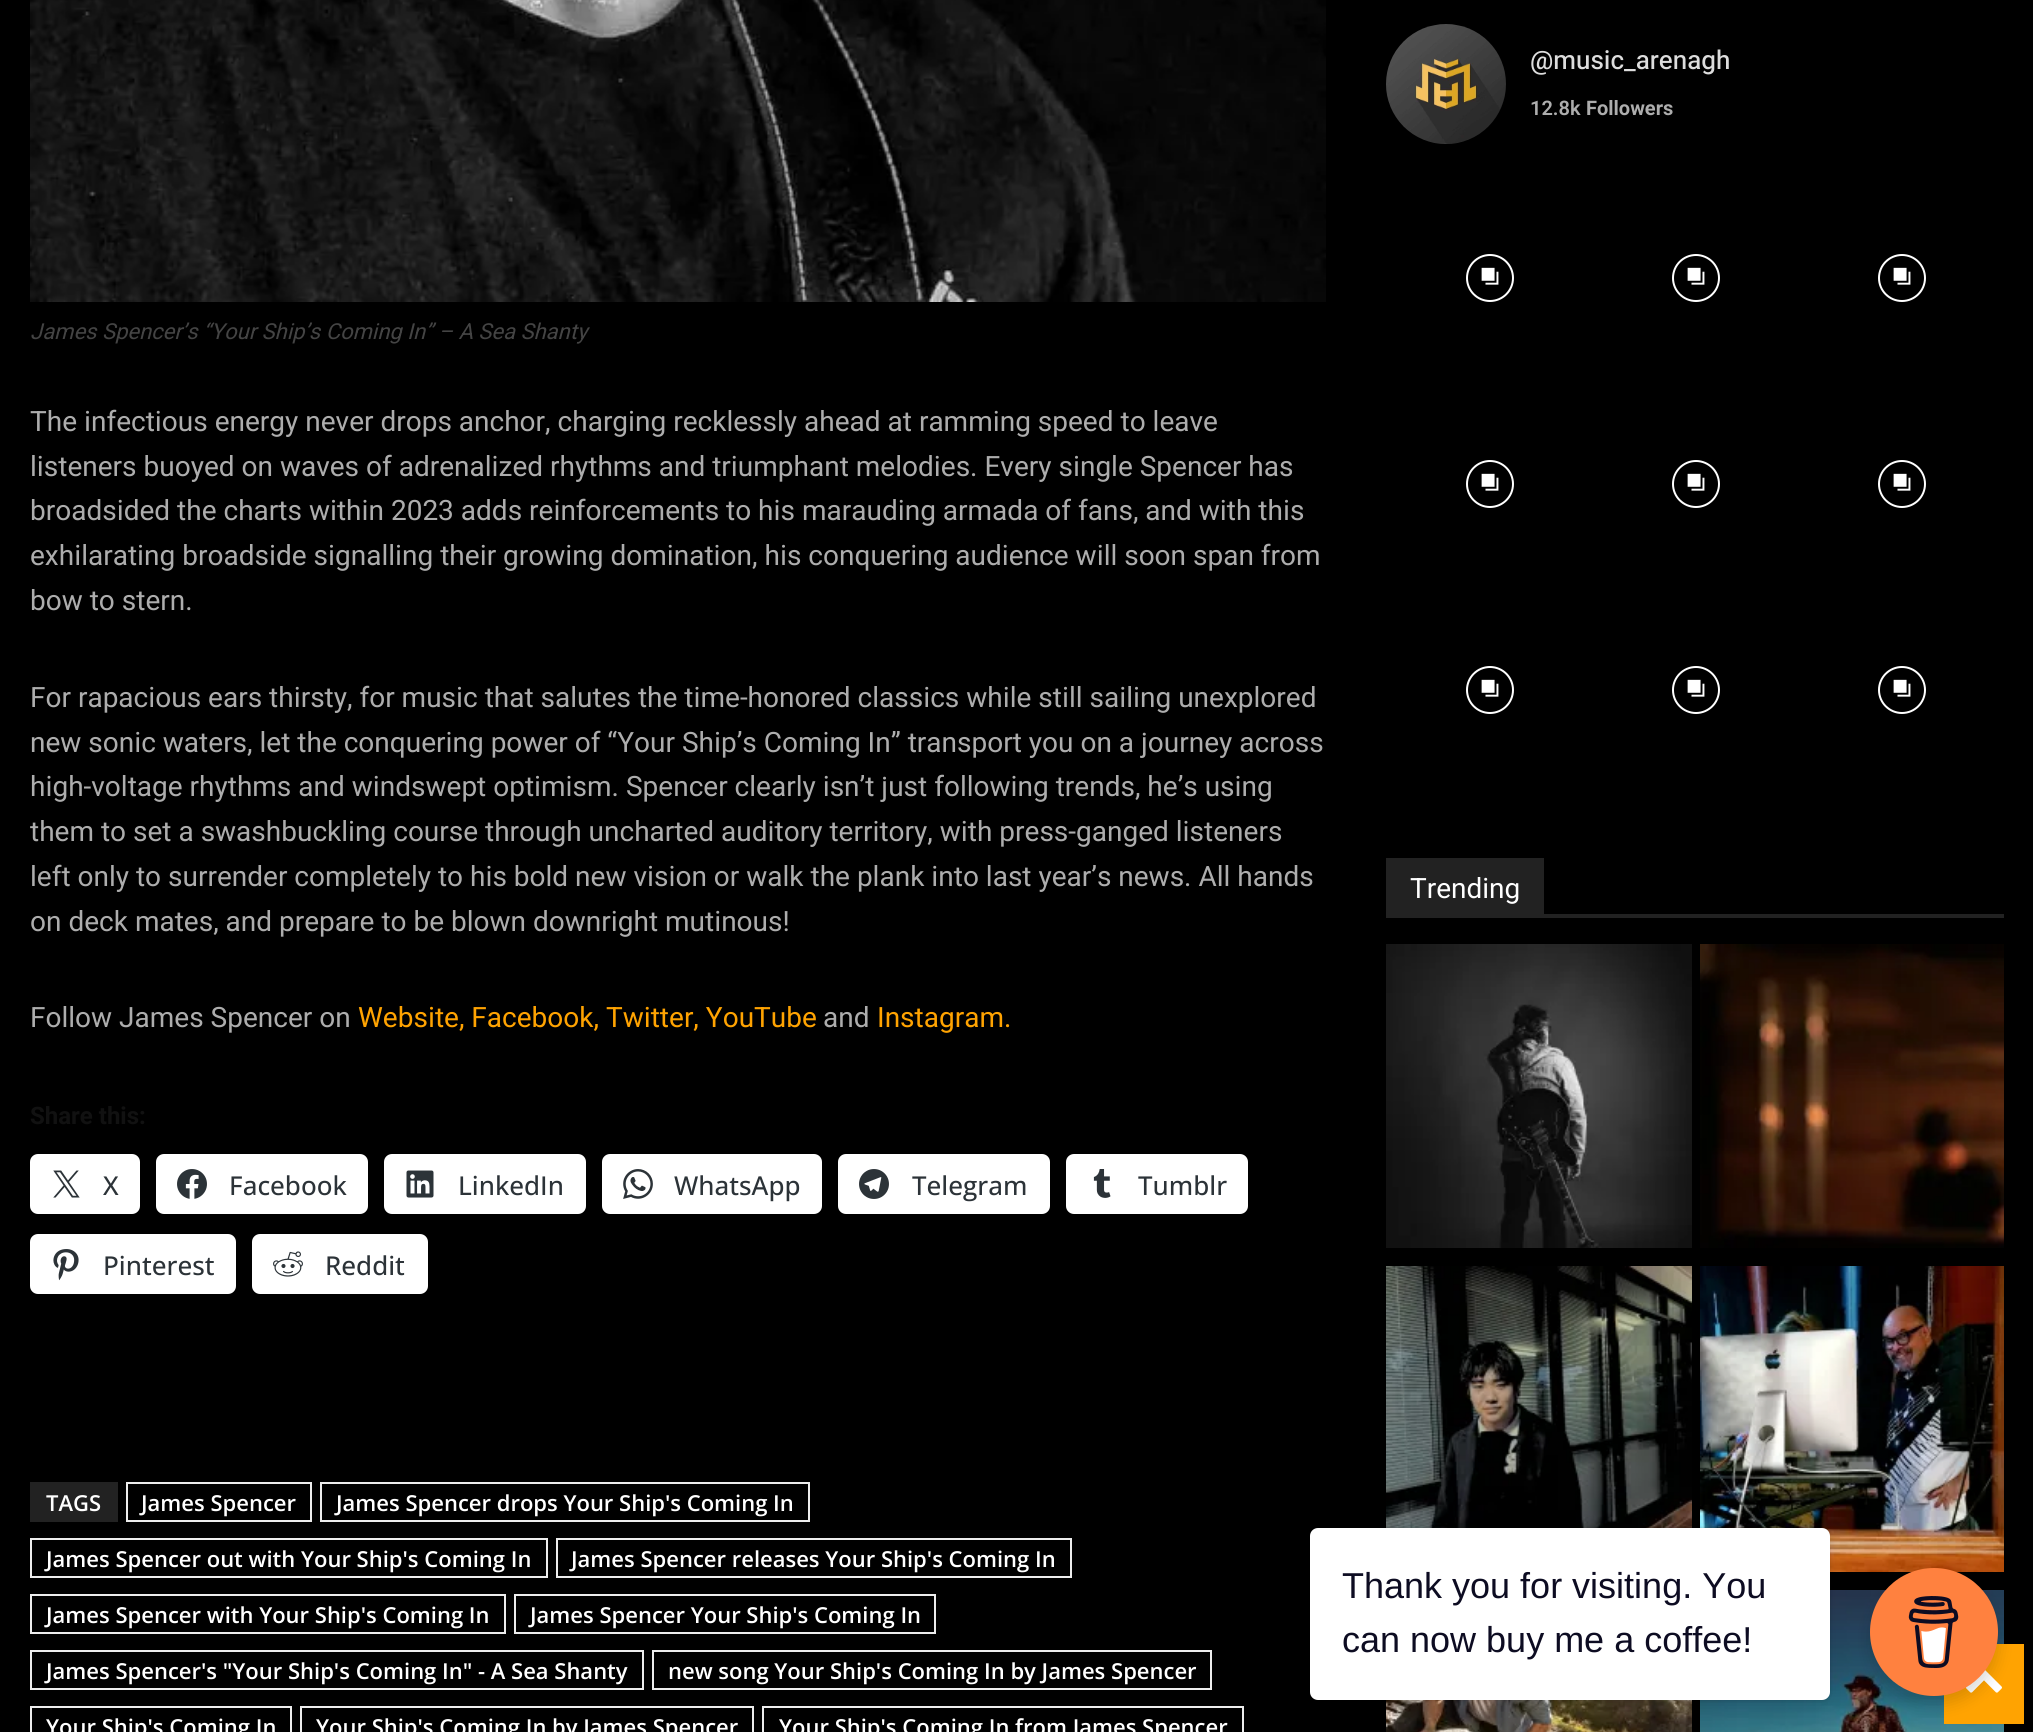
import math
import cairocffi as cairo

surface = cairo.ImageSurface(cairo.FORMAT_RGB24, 2033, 1732)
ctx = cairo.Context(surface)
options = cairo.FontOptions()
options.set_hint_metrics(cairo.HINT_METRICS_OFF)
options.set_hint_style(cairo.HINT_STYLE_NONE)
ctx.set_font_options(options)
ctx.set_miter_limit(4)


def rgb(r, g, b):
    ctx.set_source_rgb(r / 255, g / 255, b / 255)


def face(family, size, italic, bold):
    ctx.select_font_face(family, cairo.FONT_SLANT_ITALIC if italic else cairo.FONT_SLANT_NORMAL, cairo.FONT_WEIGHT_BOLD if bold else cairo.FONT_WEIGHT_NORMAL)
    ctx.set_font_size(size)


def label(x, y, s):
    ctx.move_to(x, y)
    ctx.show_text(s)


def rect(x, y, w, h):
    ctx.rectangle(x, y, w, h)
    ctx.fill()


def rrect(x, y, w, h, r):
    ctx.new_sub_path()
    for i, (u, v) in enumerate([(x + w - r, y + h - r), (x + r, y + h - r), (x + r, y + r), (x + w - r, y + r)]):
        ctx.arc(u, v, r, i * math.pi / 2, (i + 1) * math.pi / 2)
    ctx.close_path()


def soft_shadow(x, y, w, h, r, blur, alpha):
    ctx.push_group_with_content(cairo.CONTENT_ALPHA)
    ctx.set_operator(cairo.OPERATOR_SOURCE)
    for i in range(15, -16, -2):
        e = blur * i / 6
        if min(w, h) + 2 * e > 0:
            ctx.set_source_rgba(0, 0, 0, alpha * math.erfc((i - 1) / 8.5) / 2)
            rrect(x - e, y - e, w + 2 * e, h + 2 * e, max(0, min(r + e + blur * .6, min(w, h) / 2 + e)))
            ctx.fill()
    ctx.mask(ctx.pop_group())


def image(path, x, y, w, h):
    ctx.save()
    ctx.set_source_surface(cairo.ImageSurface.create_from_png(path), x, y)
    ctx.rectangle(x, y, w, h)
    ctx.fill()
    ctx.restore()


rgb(0, 0, 0)
ctx.paint()
image('image0.png', 30, 0, 1296, 302)
face('Roboto', 22, 1, 0)
rgb(68, 68, 68)
label(30, 339, 'James Spencer’s “Your Ship’s Coming In” – A Sea Shanty')
face('Heebo', 28, 0, 0)
rgb(173, 173, 173)
label(30, 431, 'The infectious energy never drops anchor, charging recklessly ahead at ramming speed to leave')
label(30, 476, 'listeners buoyed on waves of adrenalized rhythms and triumphant melodies. Every single Spencer has')
label(30, 520, 'broadsided the charts within 2023 adds reinforcements to his marauding armada of fans, and with this')
label(30, 565, 'exhilarating broadside signalling their growing domination, his conquering audience will soon span from')
label(30, 610, 'bow to stern.')
label(30, 707, 'For rapacious ears thirsty, for music that salutes the time-honored classics while still sailing unexplored')
label(30, 752, 'new sonic waters, let the conquering power of “Your Ship’s Coming In” transport you on a journey across')
label(30, 796, 'high-voltage rhythms and windswept optimism. Spencer clearly isn’t just following trends, he’s using')
label(30, 841, 'them to set a swashbuckling course through uncharted auditory territory, with press-ganged listeners')
label(30, 886, 'left only to surrender completely to his bold new vision or walk the plank into last year’s news. All hands')
label(30, 931, 'on deck mates, and prepare to be blown downright mutinous!')
label(30, 1027, 'Follow James Spencer on')
rgb(255, 163, 1)
label(358, 1027, 'Website, Facebook, Twitter, YouTube')
rgb(173, 173, 173)
label(823, 1027, 'and')
rgb(255, 163, 1)
label(877, 1027, 'Instagram.')
face('Roboto', 24, 0, 1)
rgb(17, 17, 17)
label(30, 1124, 'Share this:')
rgb(255, 255, 255)
rrect(30, 1154, 110, 60, 8)
ctx.fill()
image('image1.png', 53, 1170, 27, 28)
face('Open Sans Medium', 26, 0, 0)
rgb(44, 51, 56)
label(103, 1195, 'X')
rgb(255, 255, 255)
rrect(156, 1154, 212, 60, 8)
ctx.fill()
image('image2.png', 177, 1169, 30, 30)
rgb(44, 51, 56)
label(229, 1195, 'Facebook')
rgb(255, 255, 255)
rrect(384, 1154, 202, 60, 8)
ctx.fill()
image('image3.png', 406, 1170, 28, 28)
rgb(44, 51, 56)
label(458, 1195, 'LinkedIn')
rgb(255, 255, 255)
rrect(602, 1154, 220, 60, 8)
ctx.fill()
image('image4.png', 623, 1169, 30, 30)
rgb(44, 51, 56)
label(674, 1195, 'WhatsApp')
rgb(255, 255, 255)
rrect(838, 1154, 212, 60, 8)
ctx.fill()
image('image5.png', 859, 1169, 30, 30)
rgb(44, 51, 56)
label(912, 1195, 'Telegram')
rgb(255, 255, 255)
rrect(1066, 1154, 182, 60, 8)
ctx.fill()
image('image6.png', 1093, 1169, 18, 29)
rgb(44, 51, 56)
label(1138, 1195, 'Tumblr')
rgb(255, 255, 255)
rrect(30, 1234, 206, 60, 8)
ctx.fill()
image('image7.png', 53, 1249, 26, 32)
rgb(44, 51, 56)
label(103, 1275, 'Pinterest')
rgb(255, 255, 255)
rrect(252, 1234, 176, 60, 8)
ctx.fill()
image('image8.png', 273, 1251, 30, 26)
rgb(44, 51, 56)
label(325, 1275, 'Reddit')
rgb(34, 34, 34)
rect(30, 1482, 88, 40)
face('Open Sans SemiBold', 22, 0, 0)
rgb(255, 255, 255)
label(46, 1511, 'TAGS')
ctx.rectangle(127, 1483, 184, 38)
rgb(237, 237, 237)
ctx.stroke()
rgb(255, 255, 255)
label(141, 1511, 'James Spencer')
ctx.rectangle(321, 1483, 488, 38)
rgb(237, 237, 237)
ctx.stroke()
rgb(255, 255, 255)
label(336, 1511, 'James Spencer drops Your Ship\'s Coming In')
ctx.rectangle(31, 1539, 516, 38)
rgb(237, 237, 237)
ctx.stroke()
rgb(255, 255, 255)
label(46, 1567, 'James Spencer out with Your Ship\'s Coming In')
ctx.rectangle(557, 1539, 514, 38)
rgb(237, 237, 237)
ctx.stroke()
rgb(255, 255, 255)
label(571, 1567, 'James Spencer releases Your Ship\'s Coming In')
ctx.rectangle(31, 1595, 474, 38)
rgb(237, 237, 237)
ctx.stroke()
rgb(255, 255, 255)
label(46, 1623, 'James Spencer with Your Ship\'s Coming In')
ctx.rectangle(515, 1595, 420, 38)
rgb(237, 237, 237)
ctx.stroke()
rgb(255, 255, 255)
label(530, 1623, 'James Spencer Your Ship\'s Coming In')
ctx.rectangle(31, 1651, 612, 38)
rgb(237, 237, 237)
ctx.stroke()
rgb(255, 255, 255)
label(46, 1679, 'James Spencer\'s "Your Ship\'s Coming In" - A Sea Shanty')
ctx.rectangle(653, 1651, 558, 38)
rgb(237, 237, 237)
ctx.stroke()
rgb(255, 255, 255)
label(668, 1679, 'new song Your Ship\'s Coming In by James Spencer')
ctx.rectangle(31, 1707, 260, 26)
rgb(237, 237, 237)
ctx.stroke()
rgb(255, 255, 255)
label(46, 1735, 'Your Ship\'s Coming In')
ctx.rectangle(301, 1707, 452, 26)
rgb(237, 237, 237)
ctx.stroke()
rgb(255, 255, 255)
label(316, 1735, 'Your Ship\'s Coming In by James Spencer')
ctx.rectangle(763, 1707, 480, 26)
rgb(237, 237, 237)
ctx.stroke()
rgb(255, 255, 255)
label(779, 1735, 'Your Ship\'s Coming In from James Spencer')
image('image9.png', 1386, 24, 120, 120)
face('Heebo Medium', 26, 0, 0)
rgb(221, 221, 221)
label(1530, 69, '@music_arenagh')
face('Roboto SemiBold', 20, 0, 0)
rgb(173, 173, 173)
label(1530, 115, '12.8k')
face('Roboto', 20, 0, 1)
label(1586, 115, 'Followers')
ctx.new_path()
ctx.arc(1490, 278, 23, 0, 2 * math.pi)
rgb(255, 255, 255)
ctx.stroke()
image('image10.png', 1481, 267, 18, 18)
ctx.arc(1696, 278, 23, 0, 2 * math.pi)
ctx.stroke()
image('image10.png', 1687, 267, 18, 18)
ctx.arc(1902, 278, 23, 0, 2 * math.pi)
ctx.stroke()
image('image10.png', 1893, 267, 18, 18)
ctx.arc(1490, 484, 23, 0, 2 * math.pi)
ctx.stroke()
image('image10.png', 1481, 473, 18, 18)
ctx.arc(1696, 484, 23, 0, 2 * math.pi)
ctx.stroke()
image('image10.png', 1687, 473, 18, 18)
ctx.arc(1902, 484, 23, 0, 2 * math.pi)
ctx.stroke()
image('image10.png', 1893, 473, 18, 18)
ctx.arc(1490, 690, 23, 0, 2 * math.pi)
ctx.stroke()
image('image10.png', 1481, 679, 18, 18)
ctx.arc(1696, 690, 23, 0, 2 * math.pi)
ctx.stroke()
image('image10.png', 1687, 679, 18, 18)
ctx.arc(1902, 690, 23, 0, 2 * math.pi)
ctx.stroke()
image('image10.png', 1893, 679, 18, 18)
rgb(34, 34, 34)
rect(1386, 914, 618, 4)
rect(1386, 858, 158, 56)
face('Roboto', 28, 0, 0)
rgb(255, 255, 255)
label(1410, 898, 'Trending')
image('image11.png', 1386, 944, 306, 304)
image('image12.png', 1700, 944, 304, 304)
image('image13.png', 1386, 1266, 306, 262)
image('image14.png', 1700, 1266, 304, 306)
image('image15.png', 1386, 1700, 306, 32)
image('image16.png', 1700, 1590, 304, 142)
rgb(255, 163, 1)
rect(1944, 1644, 80, 80)
image('image18.png', 1966, 1670, 36, 23)
rgb(0, 0, 0)
soft_shadow(1870, 1576, 128, 128, 64, 8, 0.15)
rgb(255, 129, 63)
ctx.arc(1934, 1632, 64, 0, 2 * math.pi)
ctx.fill()
image('image17.png', 1908, 1596, 51, 72)
rgb(0, 0, 0)
soft_shadow(1310, 1528, 520, 172, 8, 2, 0.15)
soft_shadow(1310, 1532, 520, 172, 8, 5, 0.05)
rgb(255, 255, 255)
rrect(1310, 1528, 520, 172, 8)
ctx.fill()
face('Liberation Sans', 36, 0, 0)
rgb(13, 12, 34)
label(1342, 1598, 'Thank you for visiting. You')
label(1342, 1652, 'can now buy me a coffee!')
surface.write_to_png('render.png')
